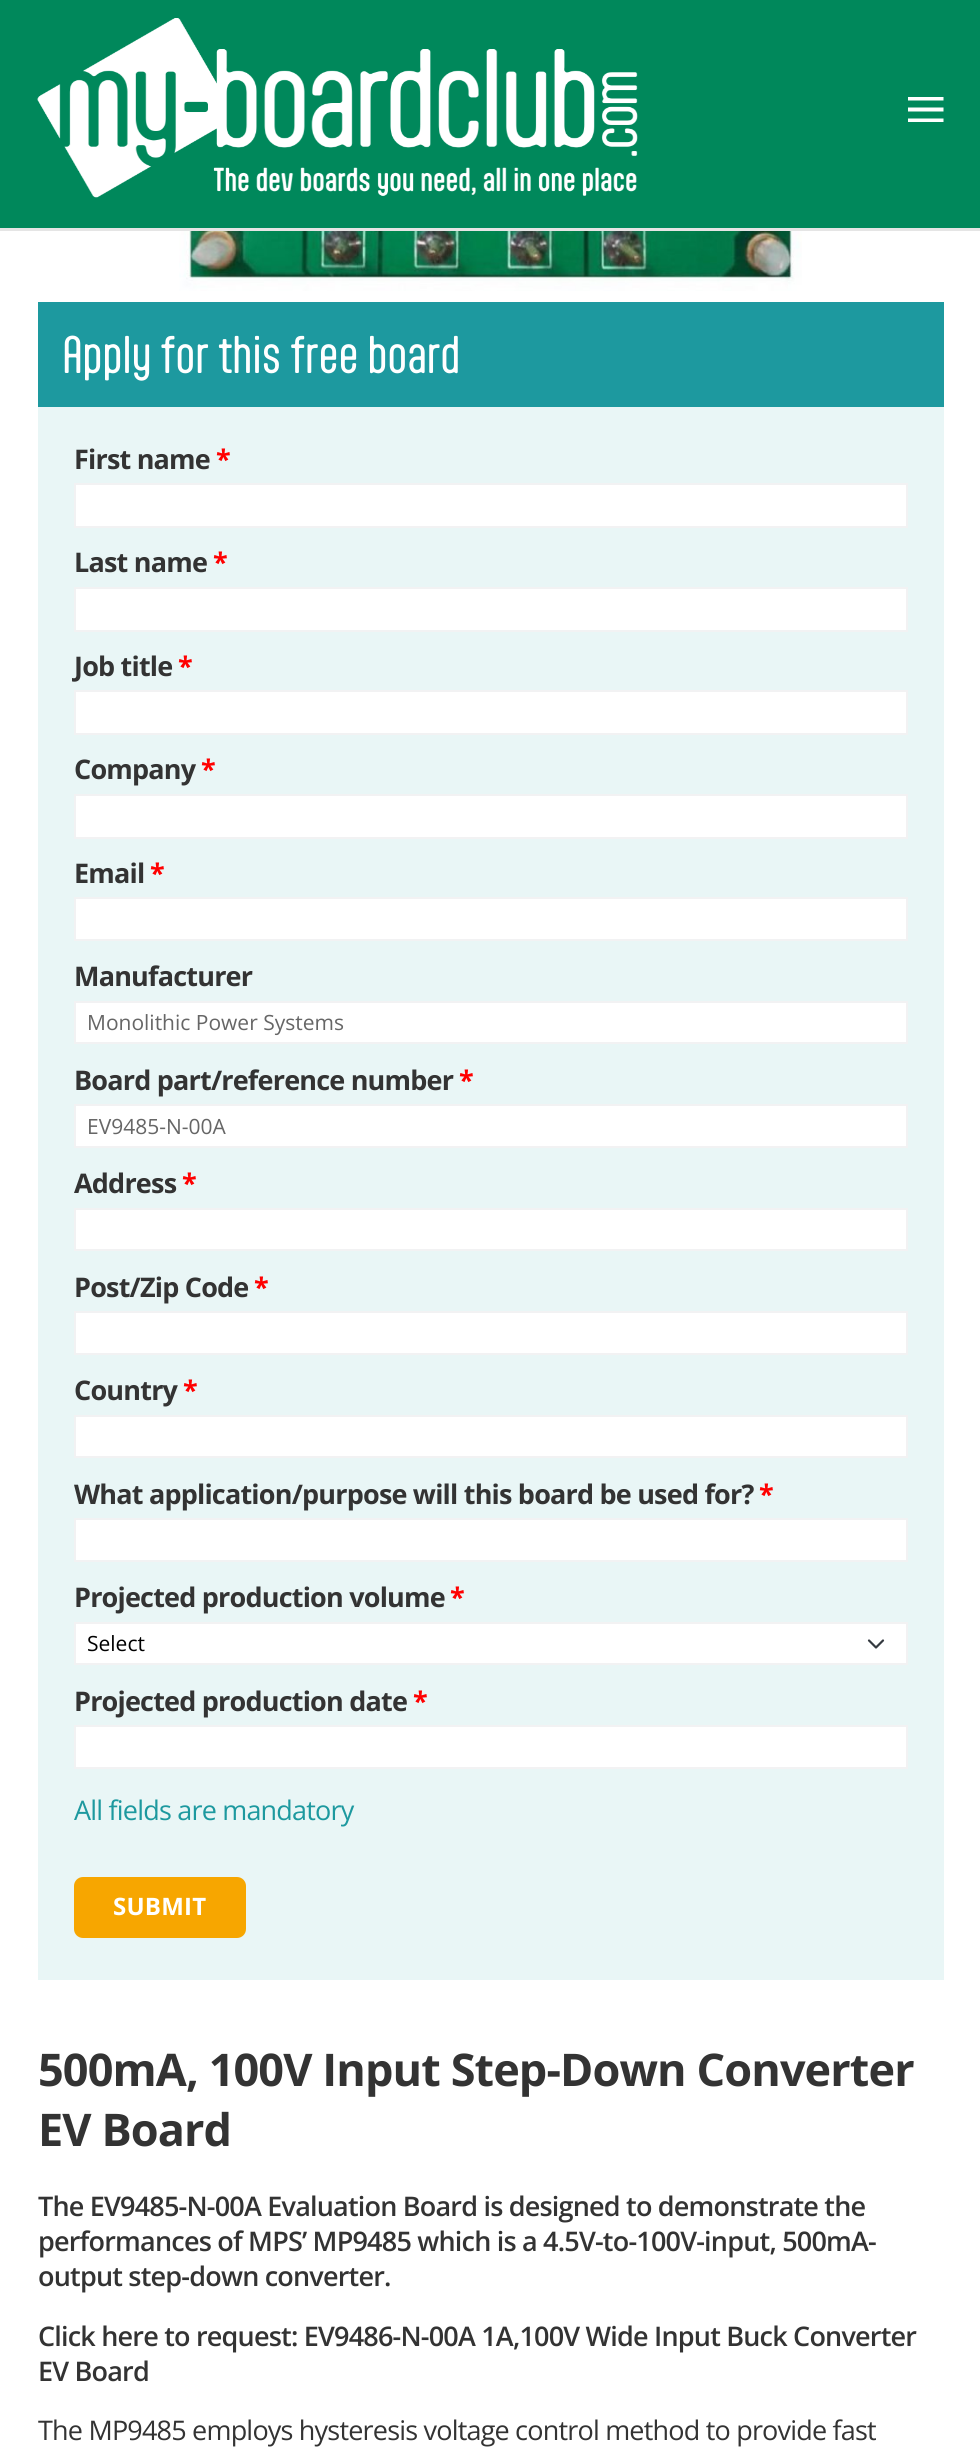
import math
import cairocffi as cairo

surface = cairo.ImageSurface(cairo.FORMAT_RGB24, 980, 2452)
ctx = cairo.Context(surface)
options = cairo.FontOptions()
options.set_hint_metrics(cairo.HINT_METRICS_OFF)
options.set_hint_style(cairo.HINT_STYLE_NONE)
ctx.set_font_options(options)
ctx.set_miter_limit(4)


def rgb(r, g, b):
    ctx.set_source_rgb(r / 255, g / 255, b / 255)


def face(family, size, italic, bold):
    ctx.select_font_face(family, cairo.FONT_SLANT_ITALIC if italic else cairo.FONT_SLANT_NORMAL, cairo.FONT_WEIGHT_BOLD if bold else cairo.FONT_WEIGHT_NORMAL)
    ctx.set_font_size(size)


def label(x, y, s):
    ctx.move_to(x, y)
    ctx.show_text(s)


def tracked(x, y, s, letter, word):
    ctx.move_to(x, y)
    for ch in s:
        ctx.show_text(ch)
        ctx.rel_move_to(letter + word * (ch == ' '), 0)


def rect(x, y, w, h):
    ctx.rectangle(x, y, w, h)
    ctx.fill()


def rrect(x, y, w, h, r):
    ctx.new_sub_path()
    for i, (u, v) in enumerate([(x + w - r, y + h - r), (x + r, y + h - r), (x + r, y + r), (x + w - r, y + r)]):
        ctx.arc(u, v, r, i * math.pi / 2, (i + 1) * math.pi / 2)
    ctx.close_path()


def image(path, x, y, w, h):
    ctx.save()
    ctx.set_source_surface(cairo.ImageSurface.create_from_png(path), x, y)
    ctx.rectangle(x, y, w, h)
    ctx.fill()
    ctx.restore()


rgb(255, 255, 255)
ctx.paint()
rgb(0, 136, 91)
rect(0, 0, 980, 228)
rgb(229, 229, 229)
rect(0, 228, 980, 3)
image('image0.png', 37, 18, 601, 180)
ctx.save()
ctx.rectangle(908, 92, 36, 36)
ctx.clip()
rgb(255, 255, 255)
ctx.set_fill_rule(cairo.FILL_RULE_EVEN_ODD)
ctx.new_path()
ctx.move_to(907.5, 97)
ctx.line_to(943.5, 97)
ctx.line_to(943.5, 100.5)
ctx.line_to(907.5, 100.5)
ctx.close_path()
ctx.move_to(907.5, 107.5)
ctx.line_to(943.5, 107.5)
ctx.line_to(943.5, 111.5)
ctx.line_to(907.5, 111.5)
ctx.close_path()
ctx.move_to(907.5, 118.5)
ctx.line_to(943.5, 118.5)
ctx.line_to(943.5, 122)
ctx.line_to(907.5, 122)
ctx.close_path()
ctx.fill()
ctx.restore()
image('image1.png', 179, 231, 623, 60)
rgb(29, 153, 159)
rect(38, 302, 906, 105)
face('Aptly', 45, 0, 0)
rgb(255, 255, 255)
tracked(62, 373, 'Apply for this free board', -0.7, 0)
rgb(233, 246, 246)
rect(38, 407, 906, 1573)
face('Open Sans', 27, 0, 1)
rgb(51, 51, 51)
tracked(74, 469, 'First name', -0.8, 0)
rgb(255, 0, 0)
tracked(216, 469, '*', -0.8, 0)
rgb(255, 255, 255)
ctx.rectangle(75, 484, 832, 43)
ctx.fill_preserve()
rgb(242, 242, 243)
ctx.stroke()
rgb(51, 51, 51)
tracked(74, 572, 'Last name', -0.8, 0)
rgb(255, 0, 0)
tracked(213, 572, '*', -0.8, 0)
rgb(255, 255, 255)
ctx.rectangle(75, 588, 832, 43)
ctx.fill_preserve()
rgb(242, 242, 243)
ctx.stroke()
rgb(51, 51, 51)
tracked(74, 676, 'Job title', -0.8, 0)
rgb(255, 0, 0)
tracked(178, 676, '*', -0.8, 0)
rgb(255, 255, 255)
ctx.rectangle(75, 691, 832, 43)
ctx.fill_preserve()
rgb(242, 242, 243)
ctx.stroke()
rgb(51, 51, 51)
tracked(74, 779, 'Company', -0.8, 0)
rgb(255, 0, 0)
tracked(201, 779, '*', -0.8, 0)
rgb(255, 255, 255)
ctx.rectangle(75, 795, 832, 43)
ctx.fill_preserve()
rgb(242, 242, 243)
ctx.stroke()
rgb(51, 51, 51)
tracked(74, 883, 'Email', -0.8, 0)
rgb(255, 0, 0)
tracked(150, 883, '*', -0.8, 0)
rgb(255, 255, 255)
ctx.rectangle(75, 898, 832, 42)
ctx.fill_preserve()
rgb(242, 242, 243)
ctx.stroke()
rgb(51, 51, 51)
tracked(74, 986, 'Manufacturer', -0.8, 0)
rgb(255, 255, 255)
ctx.rectangle(75, 1002, 832, 41)
ctx.fill_preserve()
rgb(242, 242, 243)
ctx.stroke()
face('Open Sans', 21, 0, 0)
rgb(102, 102, 102)
label(87, 1030, 'Monolithic Power Systems')
face('Open Sans', 27, 0, 1)
rgb(51, 51, 51)
tracked(74, 1090, 'Board part/reference number', -0.8, 0)
rgb(255, 0, 0)
tracked(459, 1090, '*', -0.8, 0)
rgb(255, 255, 255)
ctx.rectangle(75, 1105, 832, 42)
ctx.fill_preserve()
rgb(242, 242, 243)
ctx.stroke()
face('Open Sans', 21, 0, 0)
rgb(102, 102, 102)
label(87, 1134, 'EV9485-N-00A')
face('Open Sans', 27, 0, 1)
rgb(51, 51, 51)
tracked(74, 1193, 'Address', -0.8, 0)
rgb(255, 0, 0)
tracked(182, 1193, '*', -0.8, 0)
rgb(255, 255, 255)
ctx.rectangle(75, 1209, 832, 41)
ctx.fill_preserve()
rgb(242, 242, 243)
ctx.stroke()
rgb(51, 51, 51)
tracked(74, 1297, 'Post/Zip Code', -0.8, 0)
rgb(255, 0, 0)
tracked(254, 1297, '*', -0.8, 0)
rgb(255, 255, 255)
ctx.rectangle(75, 1312, 832, 42)
ctx.fill_preserve()
rgb(242, 242, 243)
ctx.stroke()
rgb(51, 51, 51)
tracked(74, 1400, 'Country', -0.8, 0)
rgb(255, 0, 0)
tracked(183, 1400, '*', -0.8, 0)
rgb(255, 255, 255)
ctx.rectangle(75, 1416, 832, 41)
ctx.fill_preserve()
rgb(242, 242, 243)
ctx.stroke()
rgb(51, 51, 51)
tracked(74, 1504, 'What application/purpose will this board be used for?', -0.8, 0)
rgb(255, 0, 0)
tracked(759, 1504, '*', -0.8, 0)
rgb(255, 255, 255)
ctx.rectangle(75, 1519, 832, 42)
ctx.fill_preserve()
rgb(242, 242, 243)
ctx.stroke()
rgb(51, 51, 51)
tracked(74, 1607, 'Projected production volume', -0.8, 0)
rgb(255, 0, 0)
tracked(450, 1607, '*', -0.8, 0)
rgb(255, 255, 255)
rect(76, 1624, 830, 39)
ctx.new_path()
ctx.move_to(869, 1640.5)
ctx.line_to(876, 1647.5)
ctx.line_to(883, 1640.5)
rgb(52, 58, 64)
ctx.set_line_width(2.2)
ctx.set_line_cap(cairo.LINE_CAP_ROUND)
ctx.set_line_join(cairo.LINE_JOIN_ROUND)
ctx.stroke()
ctx.rectangle(75, 1623, 832, 41)
rgb(242, 242, 243)
ctx.set_line_width(2)
ctx.set_line_cap(cairo.LINE_CAP_BUTT)
ctx.set_line_join(cairo.LINE_JOIN_MITER)
ctx.stroke()
face('Open Sans', 21, 0, 0)
rgb(0, 0, 0)
label(87, 1651, 'Select')
face('Open Sans', 27, 0, 1)
rgb(51, 51, 51)
tracked(74, 1711, 'Projected production date', -0.8, 0)
rgb(255, 0, 0)
tracked(413, 1711, '*', -0.8, 0)
rgb(255, 255, 255)
ctx.rectangle(75, 1726, 832, 42)
ctx.fill_preserve()
rgb(242, 242, 243)
ctx.stroke()
face('Open Sans', 27, 0, 0)
rgb(29, 153, 159)
tracked(74, 1820, 'All fields are mandatory', -0.8, 0)
rgb(247, 166, 0)
rrect(75.5, 1878.5, 169, 58, 7.5)
ctx.fill_preserve()
ctx.set_line_width(3)
ctx.stroke()
face('Open Sans', 24, 0, 1)
rgb(255, 255, 255)
tracked(113, 1915, 'SUBMIT', 0.25, 0)
face('Open Sans', 45, 0, 1)
rgb(51, 51, 51)
tracked(38, 2086, '500mA, 100V Input Step-Down Converter', -0.9, 0)
tracked(38, 2146, 'EV Board', -0.9, 0)
face('Open Sans SemiBold', 27, 0, 0)
tracked(38, 2216, 'The EV9485-N-00A Evaluation Board is designed to demonstrate the', -0.8, 0)
tracked(38, 2251, 'performances of MPS’ MP9485 which is a 4.5V-to-100V-input, 500mA-', -0.8, 0)
tracked(38, 2286, 'output step-down converter.', -0.8, 0)
tracked(38, 2346, 'Click here to request: EV9486-N-00A 1A,100V Wide Input Buck Converter', -0.8, 0)
tracked(38, 2381, 'EV Board', -0.8, 0)
face('Open Sans', 27, 0, 0)
tracked(38, 2440, 'The MP9485 employs hysteresis voltage control method to provide fast', -0.8, 0)
surface.write_to_png('render.png')
